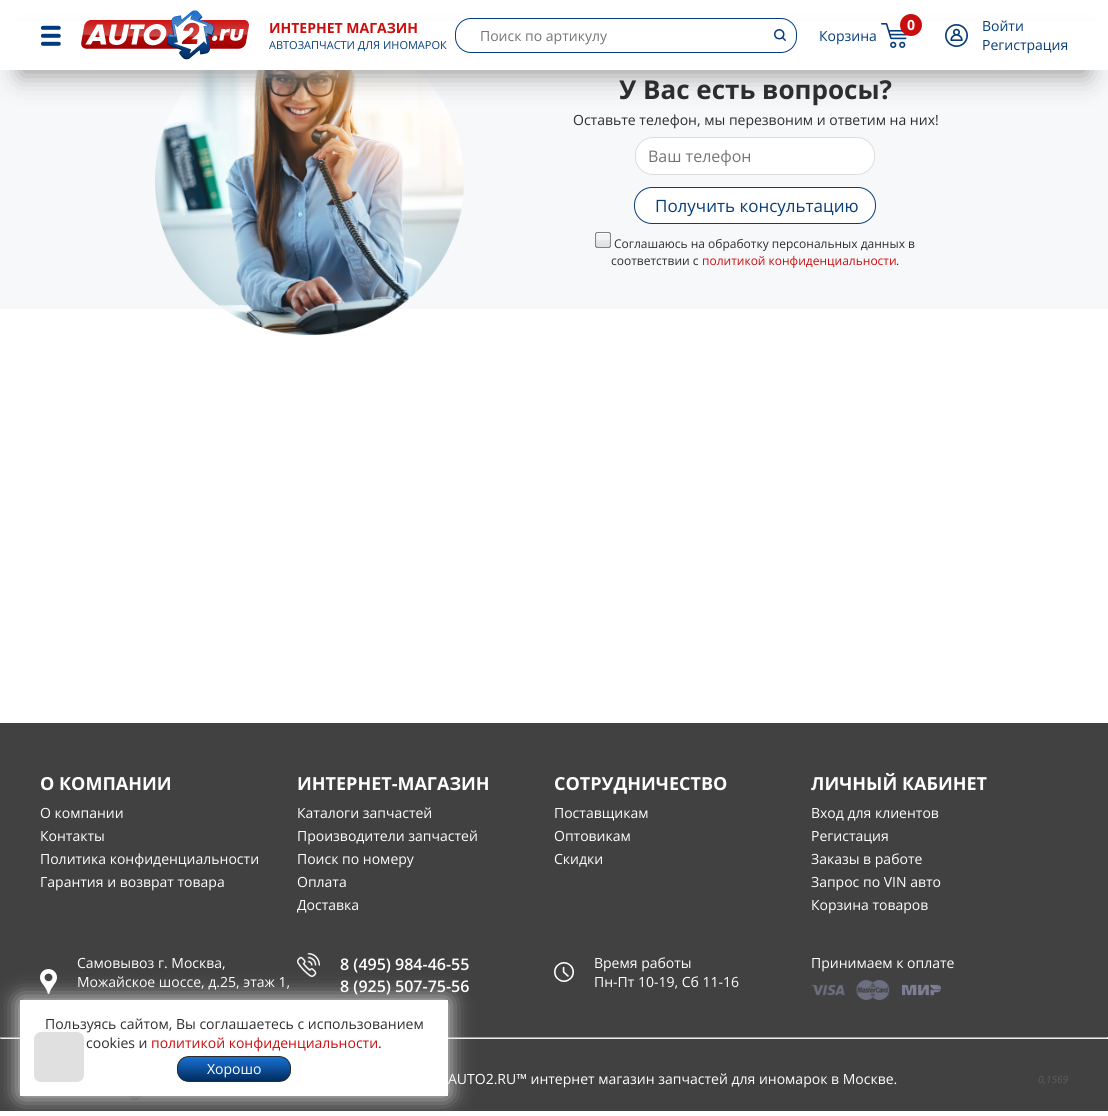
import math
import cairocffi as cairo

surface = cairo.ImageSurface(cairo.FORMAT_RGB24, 1108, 1116)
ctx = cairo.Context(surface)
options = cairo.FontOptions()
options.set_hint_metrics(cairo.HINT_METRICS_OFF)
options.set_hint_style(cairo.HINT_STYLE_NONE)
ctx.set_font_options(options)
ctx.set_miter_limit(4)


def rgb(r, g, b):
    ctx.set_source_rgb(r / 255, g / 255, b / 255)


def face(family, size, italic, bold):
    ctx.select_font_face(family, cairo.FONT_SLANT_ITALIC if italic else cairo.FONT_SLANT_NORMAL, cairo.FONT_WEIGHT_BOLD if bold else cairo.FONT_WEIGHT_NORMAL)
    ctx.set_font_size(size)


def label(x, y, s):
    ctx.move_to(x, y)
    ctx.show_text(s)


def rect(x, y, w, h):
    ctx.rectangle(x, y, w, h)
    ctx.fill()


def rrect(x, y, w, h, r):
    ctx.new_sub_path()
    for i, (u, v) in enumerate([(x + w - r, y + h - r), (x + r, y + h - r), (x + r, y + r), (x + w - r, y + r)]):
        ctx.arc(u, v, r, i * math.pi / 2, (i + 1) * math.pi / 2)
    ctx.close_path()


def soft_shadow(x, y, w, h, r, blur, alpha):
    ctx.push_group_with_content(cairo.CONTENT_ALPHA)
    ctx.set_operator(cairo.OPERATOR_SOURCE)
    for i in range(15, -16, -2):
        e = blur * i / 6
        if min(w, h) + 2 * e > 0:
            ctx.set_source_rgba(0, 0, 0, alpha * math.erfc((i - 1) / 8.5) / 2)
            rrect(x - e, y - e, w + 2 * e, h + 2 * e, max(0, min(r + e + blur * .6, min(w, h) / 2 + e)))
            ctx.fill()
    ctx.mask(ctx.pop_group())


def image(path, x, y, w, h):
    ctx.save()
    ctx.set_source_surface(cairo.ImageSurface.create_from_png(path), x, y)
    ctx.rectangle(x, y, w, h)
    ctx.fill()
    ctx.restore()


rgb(255, 255, 255)
ctx.paint()
rgb(247, 248, 250)
rect(0, 70, 1108, 239)
image('image5.png', 155, 70, 309, 265)
rgb(159, 159, 159)
soft_shadow(20, 46, 1068, 30, 0, 13, 1)
rgb(255, 255, 255)
rect(0, 21, 1108, 49)
image('image0.png', 40, 25, 21, 21)
image('image1.png', 81, 10, 168, 50)
face('Open Sans', 14, 0, 1)
rgb(202, 13, 13)
label(269, 33, 'ИНТЕРНЕТ МАГАЗИН')
face('Open Sans', 11, 0, 0)
rgb(6, 61, 123)
label(269, 49, 'АВТОЗАПЧАСТИ ДЛЯ ИНОМАРОК')
rrect(455.5, 18.5, 341, 34, 15.5)
ctx.set_line_width(1)
ctx.stroke()
face('Open Sans', 14, 0, 0)
rgb(117, 117, 117)
label(480, 41, 'Поиск по артикулу')
image('image2.png', 774, 29, 12, 12)
rgb(6, 61, 123)
label(819, 41, 'Корзина')
image('image3.png', 881, 23, 27, 25)
rgb(202, 13, 13)
ctx.arc(911, 25, 11, 0, 2 * math.pi)
ctx.fill()
face('Open Sans', 14, 0, 1)
rgb(255, 255, 255)
label(907, 30, '0')
image('image4.png', 945, 24, 23, 23)
face('Open Sans', 14, 0, 0)
rgb(6, 61, 123)
label(982, 31, 'Войти')
label(982, 50, 'Регистрация')
face('Open Sans', 26, 0, 1)
rgb(45, 45, 45)
label(619, 99, 'У Вас есть вопросы?')
face('Open Sans', 14, 0, 0)
label(573, 125, 'Оставьте телефон, мы перезвоним и ответим на них!')
rgb(255, 255, 255)
rrect(635.5, 137.5, 239, 37, 17.5)
ctx.fill_preserve()
rgb(221, 221, 221)
ctx.stroke()
face('Open Sans', 16, 0, 0)
rgb(117, 117, 117)
label(648, 162, 'Ваш телефон')
rgb(255, 255, 255)
rrect(634.5, 187.5, 241, 36, 17.5)
ctx.fill_preserve()
rgb(6, 61, 123)
ctx.stroke()
face('Open Sans', 17, 0, 0)
label(655, 212, 'Получить консультацию')
image('image6.png', 595, 232, 16, 16)
face('Open Sans', 12, 0, 0)
rgb(45, 45, 45)
label(614, 248, 'Соглашаюсь на обработку персональных данных в')
label(611, 265, 'соответствии с')
rgb(202, 13, 13)
label(702, 265, 'политикой конфиденциальности')
rgb(45, 45, 45)
label(896, 265, '.')
rgb(65, 65, 65)
rect(0, 723, 1108, 388)
face('Open Sans', 18, 0, 1)
rgb(255, 255, 255)
label(40, 790, 'О КОМПАНИИ')
face('Open Sans', 14, 0, 0)
label(40, 818, 'О компании')
label(40, 841, 'Контакты')
label(40, 864, 'Политика конфиденциальности')
label(40, 887, 'Гарантия и возврат товара')
face('Open Sans', 18, 0, 1)
label(297, 790, 'ИНТЕРНЕТ-МАГАЗИН')
face('Open Sans', 14, 0, 0)
label(297, 818, 'Каталоги запчастей')
label(297, 841, 'Производители запчастей')
label(297, 864, 'Поиск по номеру')
label(297, 887, 'Оплата')
label(297, 910, 'Доставка')
face('Open Sans', 18, 0, 1)
label(554, 790, 'СОТРУДНИЧЕСТВО')
face('Open Sans', 14, 0, 0)
label(554, 818, 'Поставщикам')
label(554, 841, 'Оптовикам')
label(554, 864, 'Скидки')
face('Open Sans', 18, 0, 1)
label(811, 790, 'ЛИЧНЫЙ КАБИНЕТ')
face('Open Sans', 14, 0, 0)
label(811, 818, 'Вход для клиентов')
label(811, 841, 'Регистация')
label(811, 864, 'Заказы в работе')
label(811, 887, 'Запрос по VIN авто')
label(811, 910, 'Корзина товаров')
image('image7.png', 40, 969, 17, 25)
label(77, 968, 'Самовывоз г. Москва,')
label(77, 987, 'Можайское шоссе, д.25, этаж 1,')
image('image8.png', 297, 953, 23, 24)
face('Open Sans SemiBold', 16, 0, 0)
label(340, 970, '8 (495) 984-46-55')
label(340, 992, '8 (925) 507-75-56')
image('image9.png', 554, 962, 20, 20)
face('Open Sans', 14, 0, 0)
label(594, 968, 'Время работы')
label(594, 987, 'Пн-Пт 10-19, Сб 11-16')
label(811, 968, 'Принимаем к оплате')
image('image10.png', 811, 980, 130, 20)
rgb(159, 159, 159)
rect(0, 1037, 1108, 1)
rgb(238, 238, 238)
rect(1107, 1037, 1, 2)
rect(0, 1038, 1108, 1)
rgb(159, 159, 159)
rect(0, 1037, 1, 2)
rgb(255, 255, 255)
label(448, 1084, 'AUTO2.RU™ интернет магазин запчастей для иномарок в Москве.')
face('Open Sans', 10, 1, 0)
rgb(93, 93, 93)
label(1038, 1083, '0,1569')
image('image11.png', 129, 1096, 13, 5)
rgb(234, 234, 234)
soft_shadow(20, 1000, 428, 96, 0, 11, 1)
rgb(255, 255, 255)
rect(20, 1000, 428, 96)
face('Open Sans', 14, 0, 0)
rgb(45, 45, 45)
label(45, 1029, 'Пользуясь сайтом, Вы соглашаетесь с использованием')
label(86, 1048, 'cookies и')
rgb(202, 13, 13)
label(151, 1048, 'политикой конфиденциальности')
rgb(45, 45, 45)
label(378, 1048, '.')
ctx.save()
rrect(177, 1056, 114, 26, 12)
ctx.clip()
gradient = cairo.LinearGradient(234, 1081, 234, 1057)
gradient.add_color_stop_rgba(0, 0.004, 0.173, 0.365, 1)
gradient.add_color_stop_rgba(1, 0.094, 0.443, 0.839, 1)
ctx.set_source(gradient)
rect(177, 1057, 114, 24)
ctx.restore()
rrect(177.5, 1056.5, 113, 25, 11.5)
ctx.stroke()
rgb(255, 255, 255)
label(207, 1074, 'Хорошо')
rgb(224, 224, 224)
rrect(34, 1032, 50, 50, 7)
ctx.fill()
surface.write_to_png('render.png')
